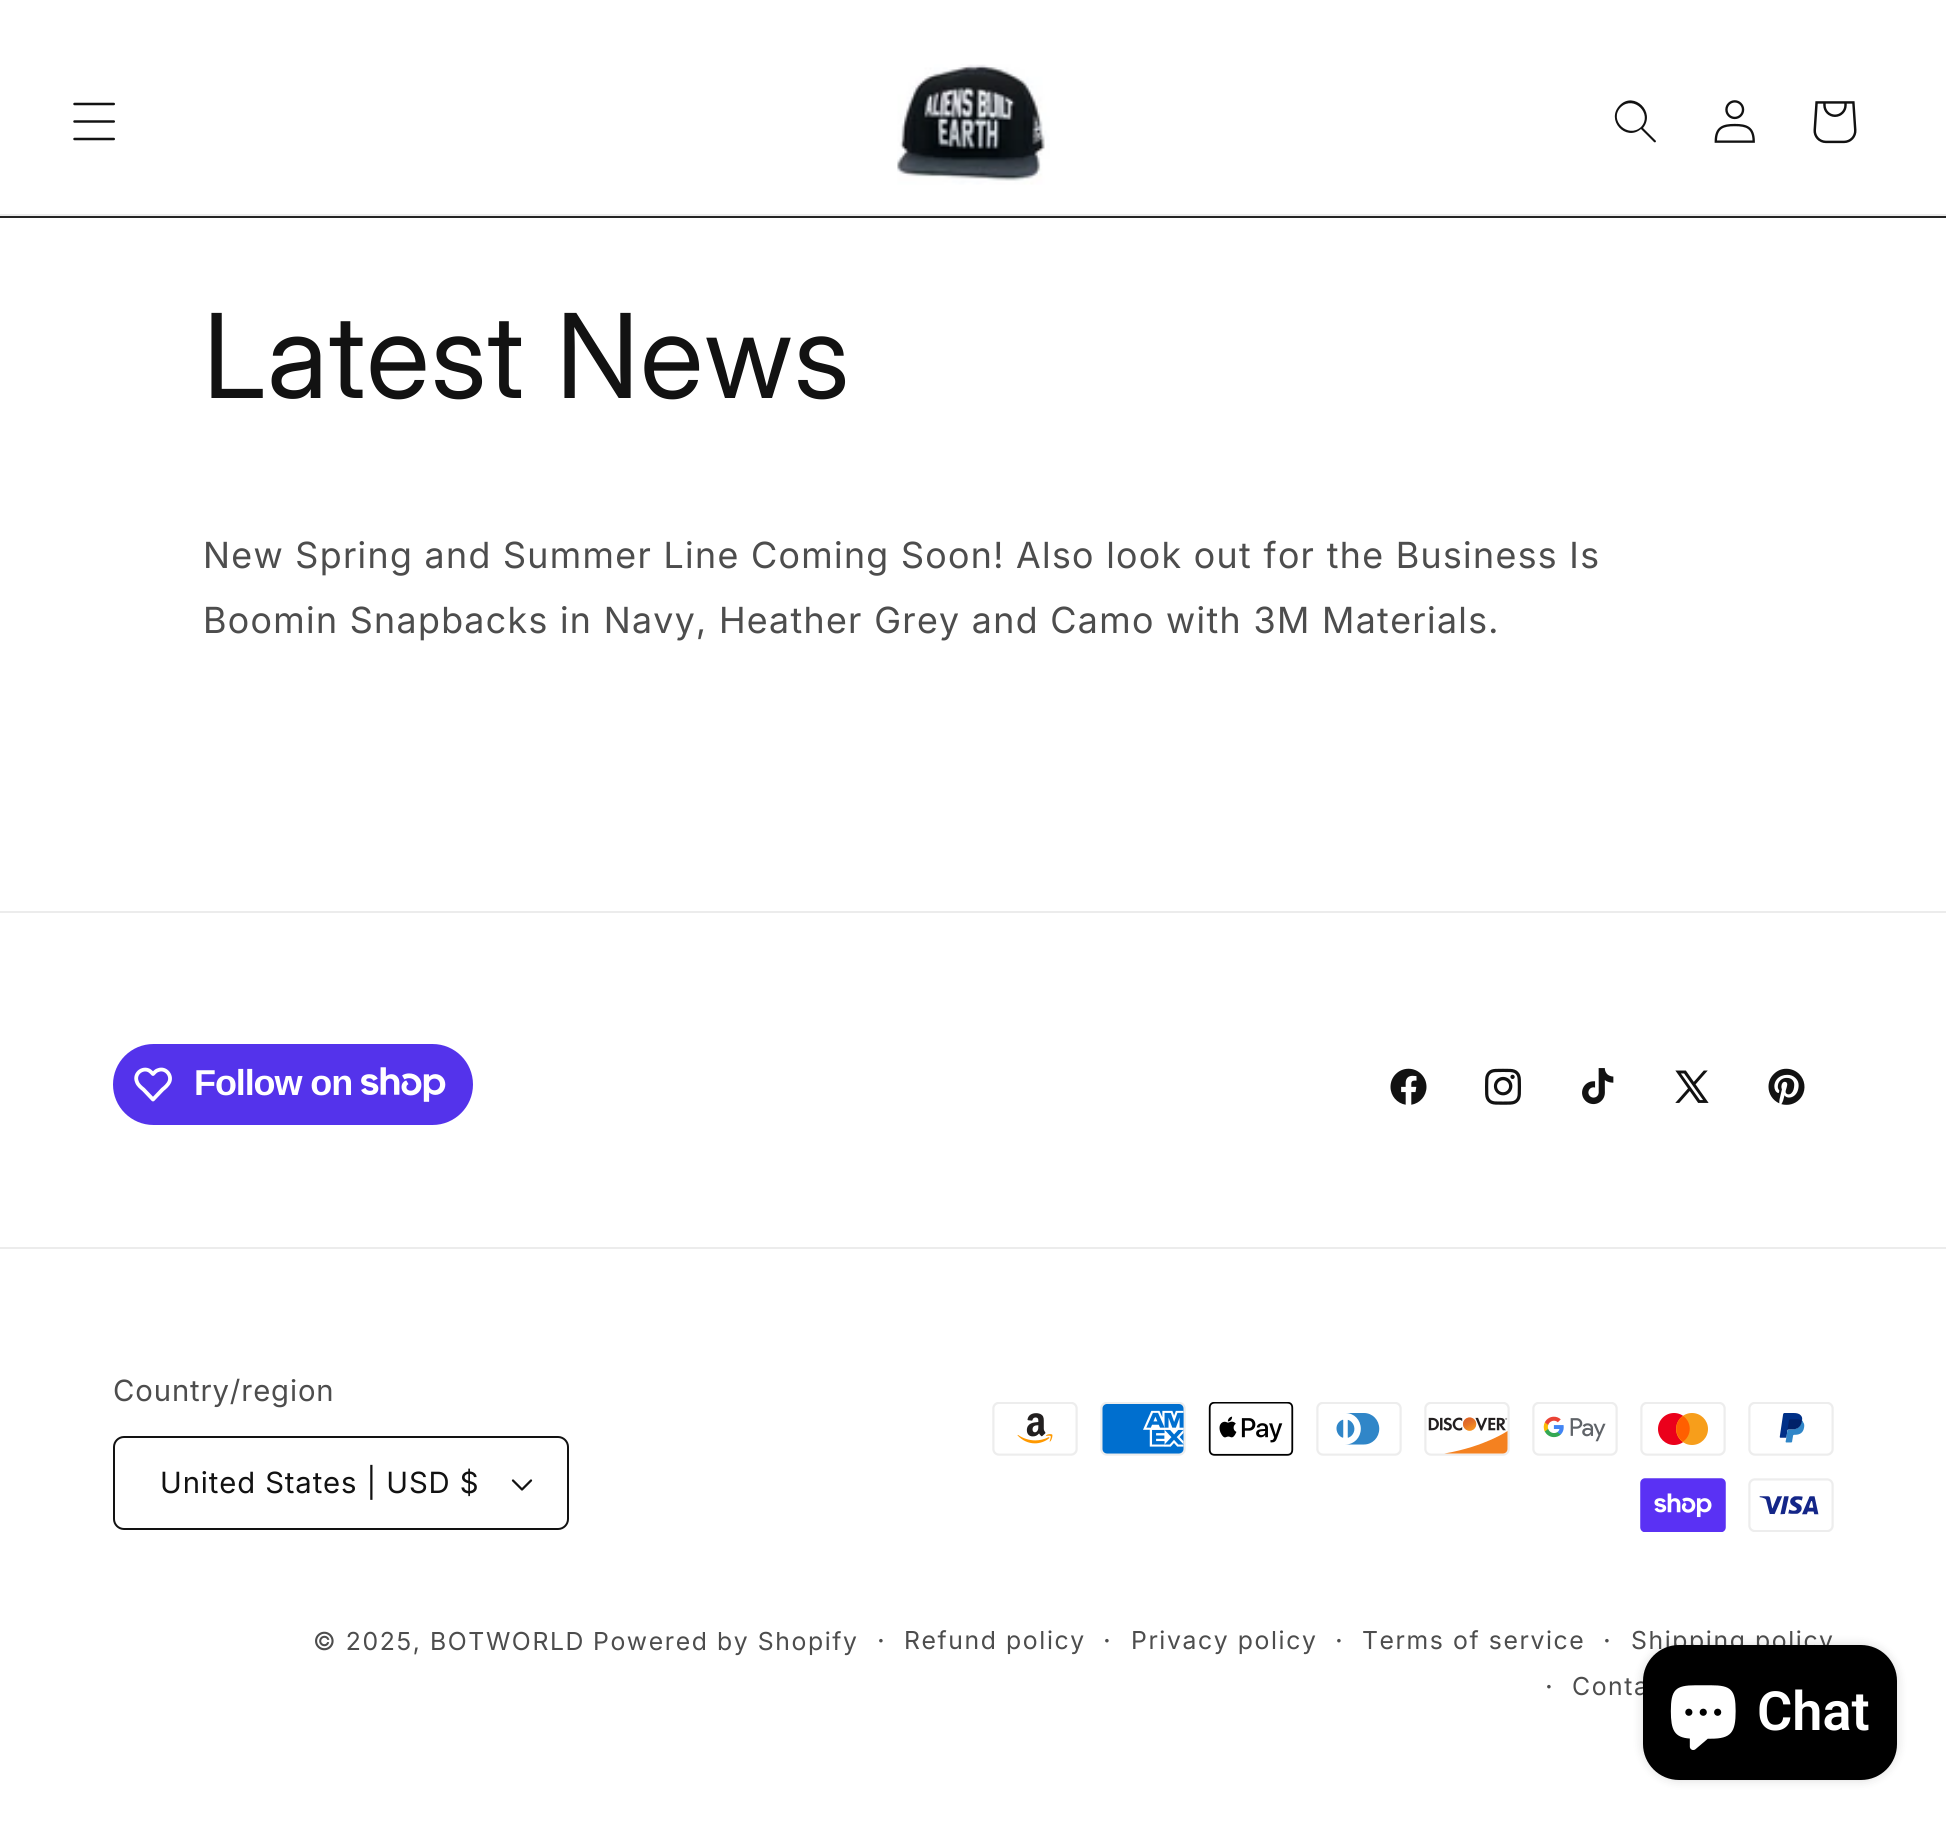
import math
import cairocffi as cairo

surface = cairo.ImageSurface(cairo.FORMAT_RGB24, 1946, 1827)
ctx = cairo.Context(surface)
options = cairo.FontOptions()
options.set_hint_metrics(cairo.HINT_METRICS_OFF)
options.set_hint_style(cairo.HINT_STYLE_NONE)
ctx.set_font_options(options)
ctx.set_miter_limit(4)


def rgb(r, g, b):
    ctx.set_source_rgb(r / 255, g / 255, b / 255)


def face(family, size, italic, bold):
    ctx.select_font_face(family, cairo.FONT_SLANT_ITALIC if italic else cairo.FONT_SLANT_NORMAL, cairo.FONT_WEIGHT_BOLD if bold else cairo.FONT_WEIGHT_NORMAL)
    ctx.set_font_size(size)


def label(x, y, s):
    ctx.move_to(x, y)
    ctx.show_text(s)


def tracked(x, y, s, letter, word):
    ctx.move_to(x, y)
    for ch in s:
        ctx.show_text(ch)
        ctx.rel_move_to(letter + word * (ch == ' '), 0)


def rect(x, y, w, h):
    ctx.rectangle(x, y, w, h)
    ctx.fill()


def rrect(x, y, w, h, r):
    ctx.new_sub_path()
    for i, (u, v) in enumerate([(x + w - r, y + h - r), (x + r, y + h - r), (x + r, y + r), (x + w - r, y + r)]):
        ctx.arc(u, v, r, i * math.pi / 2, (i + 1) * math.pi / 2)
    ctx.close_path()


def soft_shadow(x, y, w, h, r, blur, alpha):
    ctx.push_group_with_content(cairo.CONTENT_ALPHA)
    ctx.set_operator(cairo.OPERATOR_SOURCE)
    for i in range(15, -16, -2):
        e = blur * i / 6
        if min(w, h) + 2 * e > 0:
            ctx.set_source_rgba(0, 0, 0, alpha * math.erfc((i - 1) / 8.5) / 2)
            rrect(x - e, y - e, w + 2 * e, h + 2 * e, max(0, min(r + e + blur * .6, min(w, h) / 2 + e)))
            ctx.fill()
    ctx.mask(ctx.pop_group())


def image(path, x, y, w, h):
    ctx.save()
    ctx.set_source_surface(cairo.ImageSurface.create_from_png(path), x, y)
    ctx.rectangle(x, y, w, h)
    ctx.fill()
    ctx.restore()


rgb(255, 255, 255)
ctx.paint()
rgb(236, 236, 236)
rect(0, 214, 1946, 2)
image('image0.png', 73, 102, 42, 39)
image('image1.png', 897, 64, 153, 121)
rgb(18, 18, 18)
ctx.set_fill_rule(cairo.FILL_RULE_EVEN_ODD)
ctx.new_path()
ctx.move_to(1641, 127)
ctx.curve_to(1628, 139, 1608, 120, 1621, 107)
ctx.curve_to(1634, 95, 1653, 114, 1641, 127)
ctx.move_to(1641, 129)
ctx.curve_to(1626, 142, 1605, 120, 1620, 105)
ctx.curve_to(1634, 91, 1656, 112, 1643, 128)
ctx.line_to(1656, 141)
ctx.curve_to(1656, 142, 1655, 143, 1654, 142)
ctx.close_path()
ctx.fill()
image('image2.png', 1714, 100, 41, 43)
image('image3.png', 1813, 101, 44, 43)
rgb(37, 37, 37)
rect(0, 216, 1946, 2)
face('Inter', 117, 0, 0)
rgb(18, 18, 18)
tracked(203, 398, 'Latest News', 1.35, 0)
face('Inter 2', 36, 0, 0)
rgb(77, 77, 77)
tracked(203, 568, 'New Spring and Summer Line Coming Soon! Also look out for the Business Is', 1.35, 0)
tracked(203, 633, 'Boomin Snapbacks in Navy, Heather Grey and Camo with 3M Materials.', 1.35, 0)
rgb(236, 236, 236)
rect(0, 911, 1946, 2)
rgb(84, 51, 235)
rrect(113, 1044, 360, 81, 40.5)
ctx.fill()
ctx.new_path()
ctx.move_to(151, 1072)
ctx.line_to(153, 1074)
ctx.curve_to(154.5, 1072.5, 156, 1070.5, 158.5, 1070)
ctx.curve_to(165.5, 1067.5, 172, 1075, 169.5, 1081.5)
ctx.curve_to(168, 1085, 165, 1087.5, 162.5, 1089.5)
ctx.line_to(153, 1099.5)
ctx.line_to(143.5, 1089.5)
ctx.curve_to(141, 1087.5, 138, 1085, 137, 1082)
ctx.curve_to(133, 1073, 144.5, 1065.5, 151, 1072)
ctx.close_path()
rgb(255, 255, 255)
ctx.set_line_width(3.8)
ctx.set_line_join(cairo.LINE_JOIN_ROUND)
ctx.stroke()
face('Liberation Sans', 36, 0, 1)
tracked(194, 1095, 'Follow on', -1.1, 0)
image('image4.png', 361, 1067, 85, 35)
image('image5.png', 1390, 1068, 37, 37)
image('image6.png', 1485, 1068, 36, 37)
image('image7.png', 1582, 1068, 32, 37)
image('image8.png', 1675, 1070, 34, 33)
image('image9.png', 1768, 1068, 37, 37)
rgb(236, 236, 236)
rect(0, 1247, 1946, 2)
face('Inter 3', 29.25, 0, 0)
rgb(77, 77, 77)
tracked(113, 1401, 'Country/region', 0.9, 0)
image('image10.png', 511, 1479, 22, 12)
rrect(114, 1437, 454, 92, 10)
rgb(18, 18, 18)
ctx.set_line_width(2)
ctx.set_line_join(cairo.LINE_JOIN_MITER)
ctx.stroke()
tracked(160, 1493, 'United States | USD $', 0.9, 0)
image('image11.png', 992, 1402, 86, 54)
image('image12.png', 1100, 1402, 86, 54)
image('image13.png', 1208, 1402, 86, 54)
image('image14.png', 1316, 1402, 86, 54)
image('image15.png', 1424, 1402, 86, 54)
image('image16.png', 1532, 1402, 86, 54)
image('image17.png', 1640, 1402, 86, 54)
image('image18.png', 1748, 1402, 86, 54)
image('image19.png', 1640, 1478, 86, 54)
image('image20.png', 1748, 1478, 86, 54)
face('Inter 3', 24.75, 0, 0)
rgb(77, 77, 77)
tracked(313, 1650, '© 2025, BOTWORLD', 1.6, 0)
tracked(593, 1650, 'Powered by Shopify', 1.6, 0)
face('Inter 3', 27, 0, 0)
tracked(877, 1650, '·', 1.6, 0)
face('Inter 3', 24.75, 0, 0)
tracked(904, 1649, 'Refund policy', 1.6, 0)
face('Inter 3', 27, 0, 0)
tracked(1103, 1650, '·', 1.6, 0)
face('Inter 3', 24.75, 0, 0)
tracked(1131, 1649, 'Privacy policy', 1.6, 0)
face('Inter 3', 27, 0, 0)
tracked(1335, 1650, '·', 1.6, 0)
face('Inter 3', 24.75, 0, 0)
tracked(1362, 1649, 'Terms of service', 1.6, 0)
face('Inter 3', 27, 0, 0)
tracked(1603, 1650, '·', 1.6, 0)
face('Inter 3', 24.75, 0, 0)
tracked(1631, 1649, 'Shipping policy', 1.6, 0)
face('Inter 3', 27, 0, 0)
tracked(1545, 1696, '·', 1.6, 0)
face('Inter 3', 24.75, 0, 0)
tracked(1572, 1695, 'Conta', 1.6, 0)
rgb(0, 0, 0)
soft_shadow(1643, 1645, 254, 135, 36, 5.5, 0.15)
rgb(0, 0, 0)
rrect(1643, 1645, 254, 135, 36)
ctx.fill()
image('image21.png', 1670, 1685, 66, 65)
face('Roboto SemiBold', 54, 0, 0)
rgb(255, 255, 255)
label(1757, 1730, 'Chat')
surface.write_to_png('render.png')
